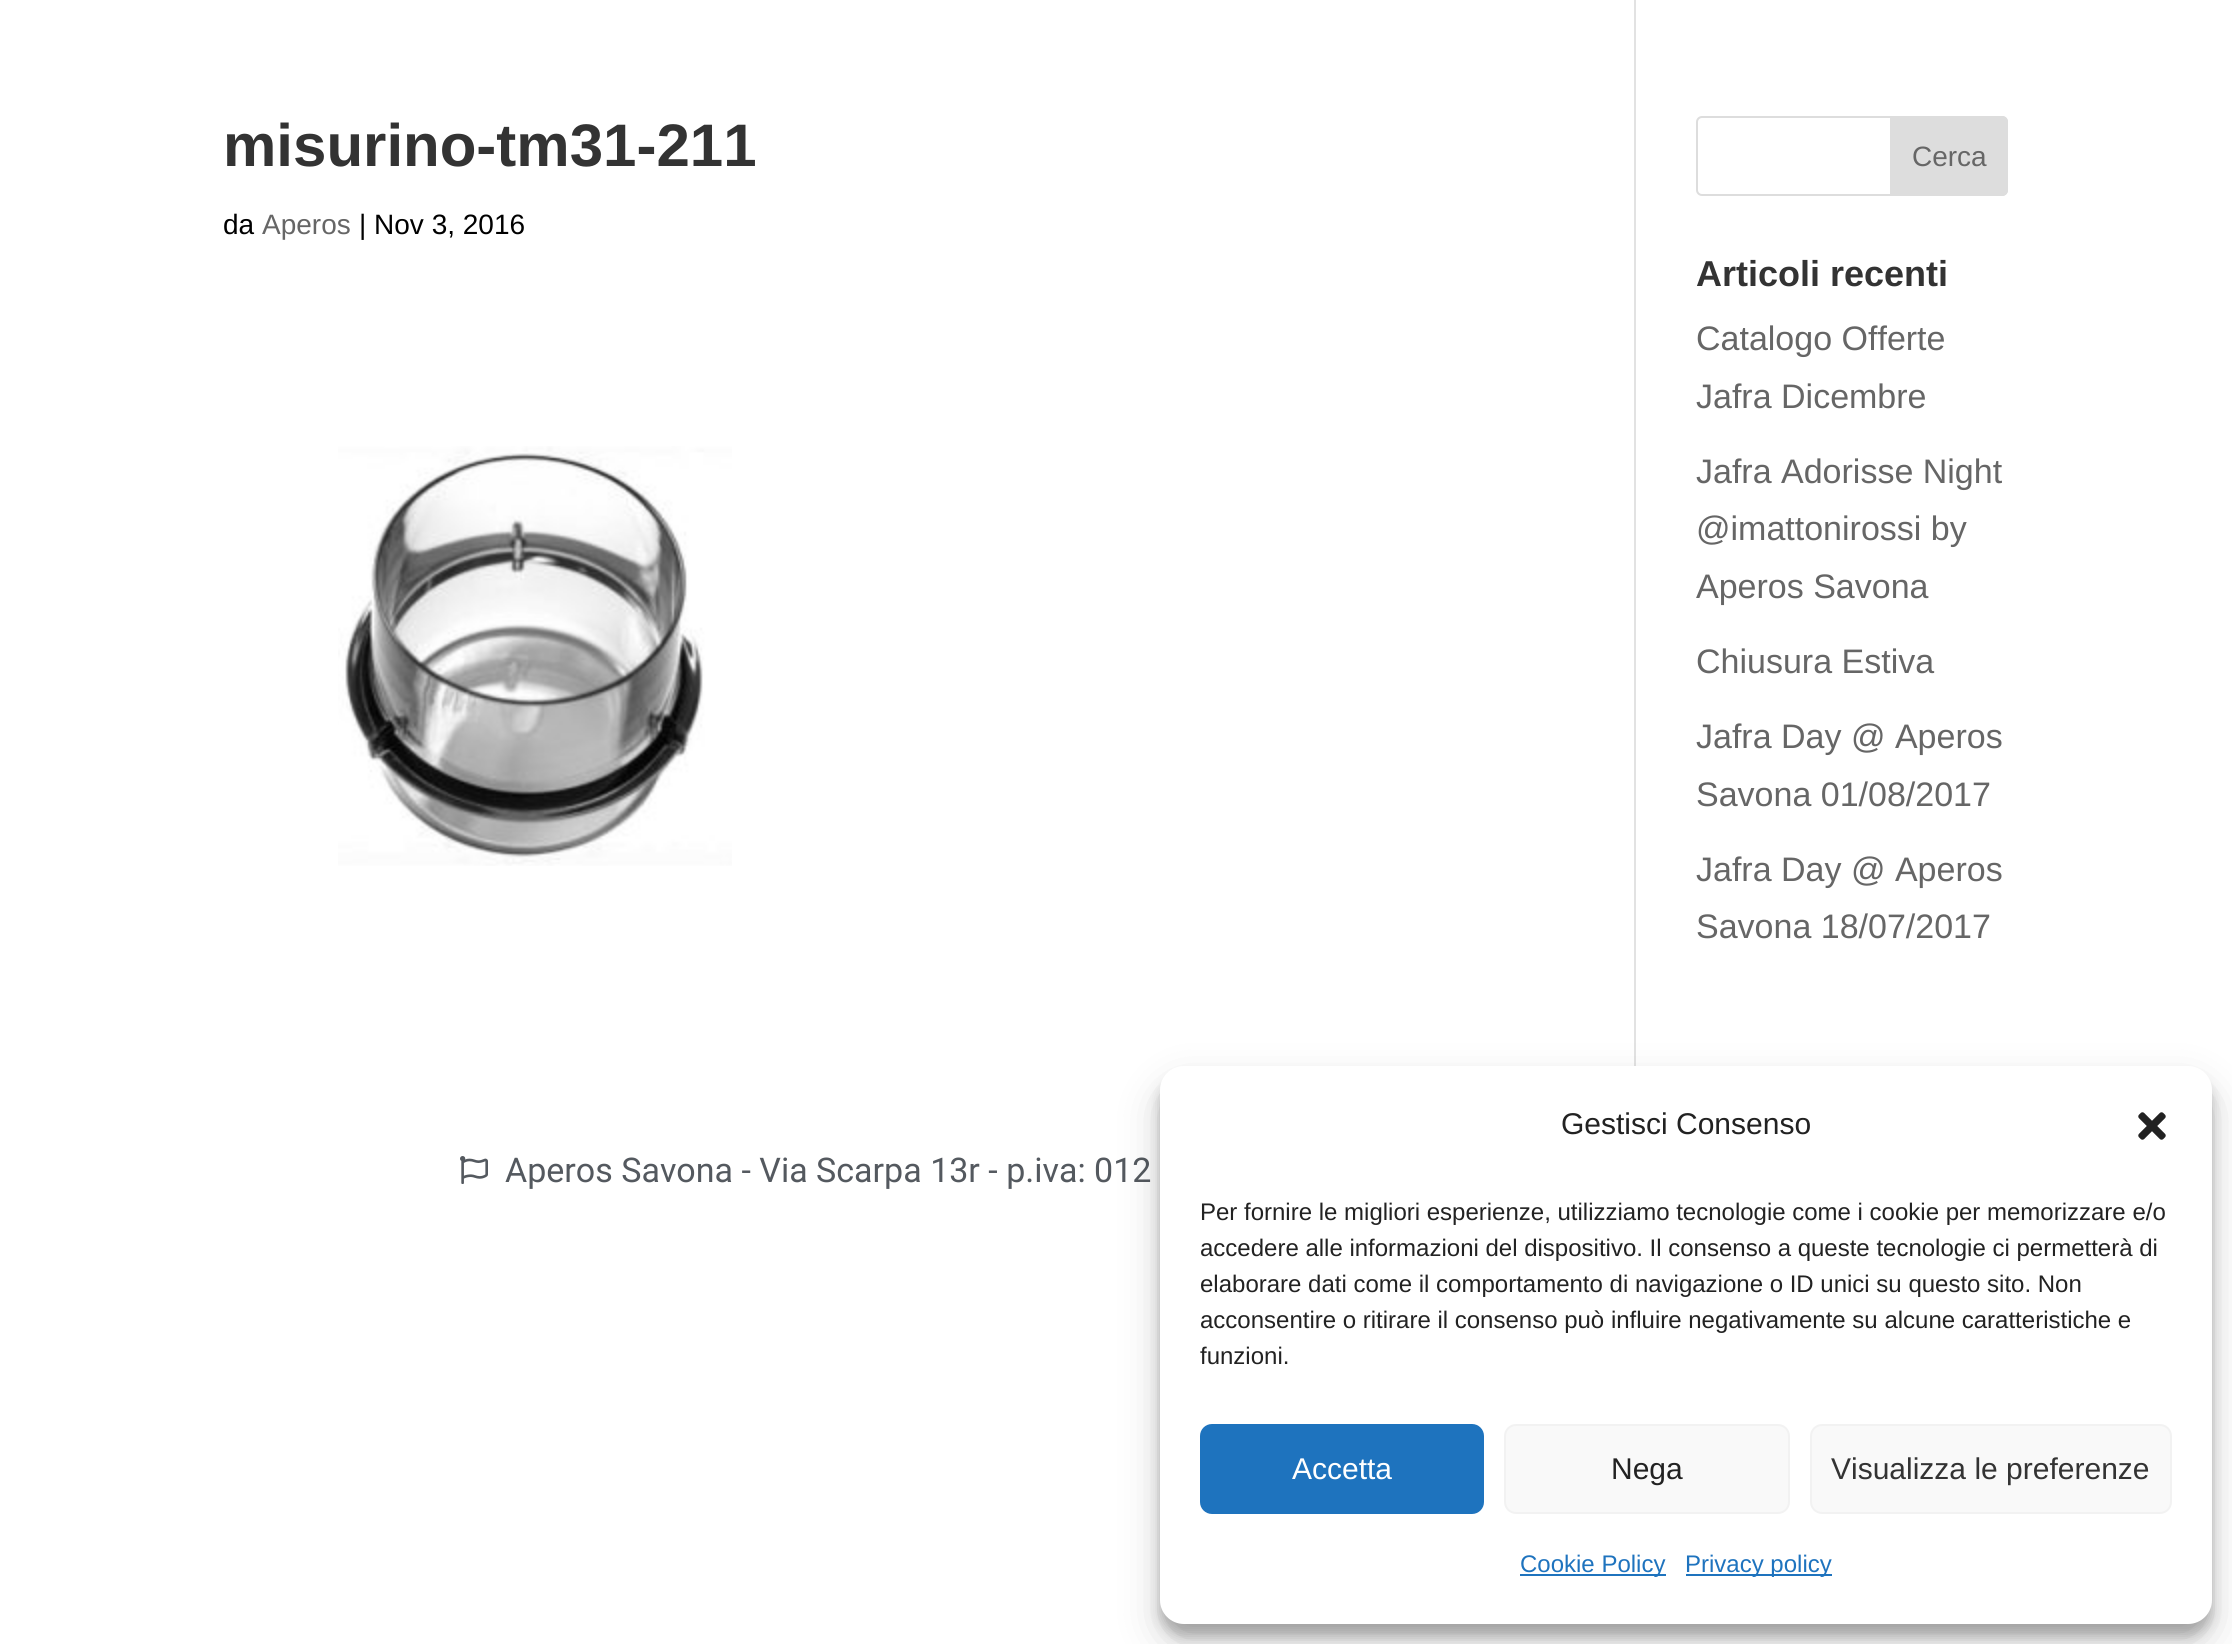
import math
import cairocffi as cairo

surface = cairo.ImageSurface(cairo.FORMAT_RGB24, 2232, 1644)
ctx = cairo.Context(surface)
options = cairo.FontOptions()
options.set_hint_metrics(cairo.HINT_METRICS_OFF)
options.set_hint_style(cairo.HINT_STYLE_NONE)
ctx.set_font_options(options)
ctx.set_miter_limit(4)


def rgb(r, g, b):
    ctx.set_source_rgb(r / 255, g / 255, b / 255)


def face(family, size, italic, bold):
    ctx.select_font_face(family, cairo.FONT_SLANT_ITALIC if italic else cairo.FONT_SLANT_NORMAL, cairo.FONT_WEIGHT_BOLD if bold else cairo.FONT_WEIGHT_NORMAL)
    ctx.set_font_size(size)


def label(x, y, s):
    ctx.move_to(x, y)
    ctx.show_text(s)


def rect(x, y, w, h):
    ctx.rectangle(x, y, w, h)
    ctx.fill()


def rrect(x, y, w, h, r):
    ctx.new_sub_path()
    for i, (u, v) in enumerate([(x + w - r, y + h - r), (x + r, y + h - r), (x + r, y + r), (x + w - r, y + r)]):
        ctx.arc(u, v, r, i * math.pi / 2, (i + 1) * math.pi / 2)
    ctx.close_path()


def soft_shadow(x, y, w, h, r, blur, alpha):
    ctx.push_group_with_content(cairo.CONTENT_ALPHA)
    ctx.set_operator(cairo.OPERATOR_SOURCE)
    for i in range(15, -16, -2):
        e = blur * i / 6
        if min(w, h) + 2 * e > 0:
            ctx.set_source_rgba(0, 0, 0, alpha * math.erfc((i - 1) / 8.5) / 2)
            rrect(x - e, y - e, w + 2 * e, h + 2 * e, max(0, min(r + e + blur * .6, min(w, h) / 2 + e)))
            ctx.fill()
    ctx.mask(ctx.pop_group())


def image(path, x, y, w, h):
    ctx.save()
    ctx.set_source_surface(cairo.ImageSurface.create_from_png(path), x, y)
    ctx.rectangle(x, y, w, h)
    ctx.fill()
    ctx.restore()


rgb(255, 255, 255)
ctx.paint()
rgb(226, 226, 226)
rect(1634, 0, 2, 1066)
face('Liberation Sans', 60, 0, 1)
rgb(51, 51, 51)
label(223, 166, 'misurino-tm31-211')
face('Liberation Sans', 28, 0, 0)
rgb(0, 0, 0)
label(223, 234, 'da')
rgb(102, 102, 102)
label(262, 234, 'Aperos')
rgb(0, 0, 0)
label(359, 234, '| Nov 3, 2016')
image('image0.png', 338, 446, 394, 420)
rrect(1697, 117, 310, 78, 5)
rgb(221, 221, 221)
ctx.stroke()
ctx.new_path()
ctx.move_to(1891, 117)
ctx.line_to(2002, 117)
ctx.curve_to(2005, 117, 2007, 119, 2007, 122)
ctx.line_to(2007, 190)
ctx.curve_to(2007, 193, 2005, 195, 2002, 195)
ctx.line_to(1891, 195)
ctx.close_path()
ctx.fill_preserve()
ctx.stroke()
rgb(102, 102, 102)
label(1912, 166, 'Cerca')
face('Liberation Sans', 36, 0, 1)
rgb(51, 51, 51)
label(1696, 286, 'Articoli recenti')
face('Liberation Sans', 34, 0, 0)
rgb(102, 102, 102)
label(1696, 350, 'Catalogo Offerte')
label(1696, 408, 'Jafra Dicembre')
label(1696, 483, 'Jafra Adorisse Night')
label(1696, 540, '@imattonirossi by')
label(1696, 598, 'Aperos Savona')
label(1696, 673, 'Chiusura Estiva')
label(1696, 748, 'Jafra Day @ Aperos')
label(1696, 806, 'Savona 01/08/2017')
label(1696, 881, 'Jafra Day @ Aperos')
label(1696, 938, 'Savona 18/07/2017')
image('image1.png', 460, 1156, 28, 28)
face('Roboto', 34, 0, 0)
rgb(84, 89, 95)
label(505, 1182, 'Aperos Savona - Via Scarpa 13r - p.iva: 012')
rgb(0, 0, 0)
soft_shadow(1160, 1078, 1052, 558, 24, 6, 0.23)
soft_shadow(1160, 1086, 1052, 558, 24, 20, 0.19)
rgb(255, 255, 255)
rrect(1160, 1066, 1052, 558, 24)
ctx.fill()
face('Liberation Sans', 30, 0, 0)
rgb(34, 34, 34)
label(1561, 1134, 'Gestisci Consenso')
image('image2.png', 2138, 1112, 28, 28)
face('Liberation Sans', 24, 0, 0)
label(1200, 1220, 'Per fornire le migliori esperienze, utilizziamo tecnologie come i cookie per memorizzare e/o')
label(1200, 1256, 'accedere alle informazioni del dispositivo. Il consenso a queste tecnologie ci permetterà di')
label(1200, 1292, 'elaborare dati come il comportamento di navigazione o ID unici su questo sito. Non')
label(1200, 1328, 'acconsentire o ritirare il consenso può influire negativamente su alcune caratteristiche e')
label(1200, 1364, 'funzioni.')
rgb(30, 115, 190)
rrect(1201, 1425, 282, 88, 11)
ctx.fill_preserve()
ctx.stroke()
face('Liberation Sans', 30, 0, 0)
rgb(255, 255, 255)
label(1292, 1479, 'Accetta')
rgb(249, 249, 249)
rrect(1505, 1425, 284, 88, 11)
ctx.fill_preserve()
rgb(242, 242, 242)
ctx.stroke()
rgb(34, 34, 34)
label(1611, 1479, 'Nega')
rgb(249, 249, 249)
rrect(1811, 1425, 360, 88, 11)
ctx.fill_preserve()
rgb(242, 242, 242)
ctx.stroke()
rgb(51, 51, 51)
label(1831, 1479, 'Visualizza le preferenze')
rgb(30, 115, 190)
rect(1520, 1574, 146, 2)
face('Liberation Sans', 24, 0, 0)
label(1520, 1572, 'Cookie Policy')
rect(1686, 1574, 146, 2)
label(1685, 1572, 'Privacy policy')
surface.write_to_png('render.png')
